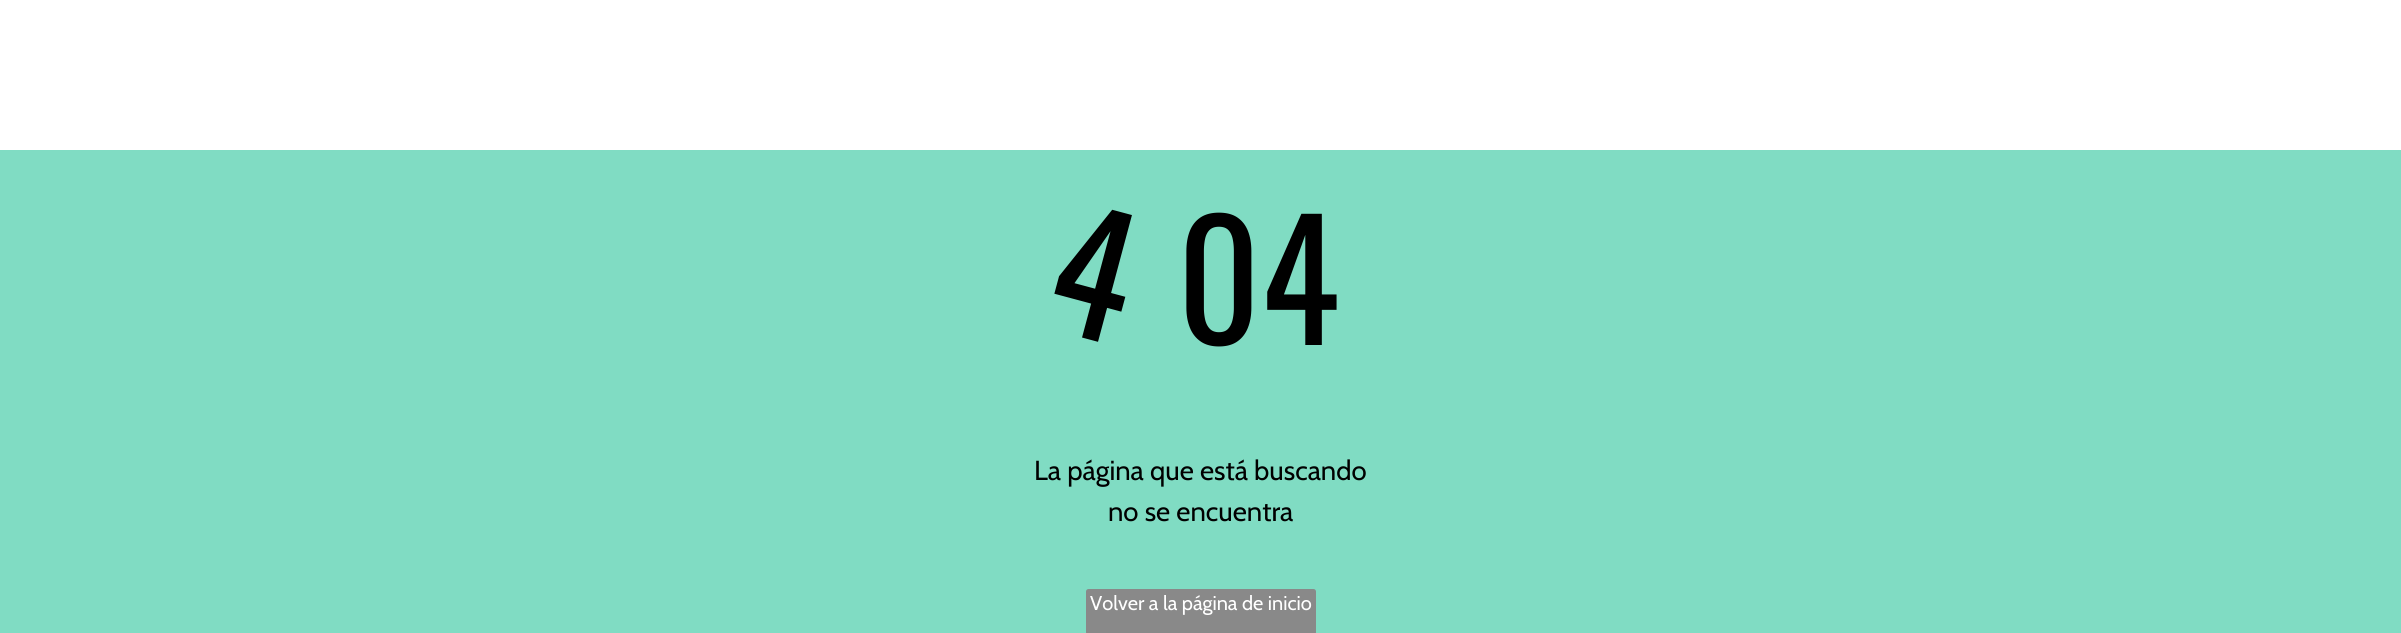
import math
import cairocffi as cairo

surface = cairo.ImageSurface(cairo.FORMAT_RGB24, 2401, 633)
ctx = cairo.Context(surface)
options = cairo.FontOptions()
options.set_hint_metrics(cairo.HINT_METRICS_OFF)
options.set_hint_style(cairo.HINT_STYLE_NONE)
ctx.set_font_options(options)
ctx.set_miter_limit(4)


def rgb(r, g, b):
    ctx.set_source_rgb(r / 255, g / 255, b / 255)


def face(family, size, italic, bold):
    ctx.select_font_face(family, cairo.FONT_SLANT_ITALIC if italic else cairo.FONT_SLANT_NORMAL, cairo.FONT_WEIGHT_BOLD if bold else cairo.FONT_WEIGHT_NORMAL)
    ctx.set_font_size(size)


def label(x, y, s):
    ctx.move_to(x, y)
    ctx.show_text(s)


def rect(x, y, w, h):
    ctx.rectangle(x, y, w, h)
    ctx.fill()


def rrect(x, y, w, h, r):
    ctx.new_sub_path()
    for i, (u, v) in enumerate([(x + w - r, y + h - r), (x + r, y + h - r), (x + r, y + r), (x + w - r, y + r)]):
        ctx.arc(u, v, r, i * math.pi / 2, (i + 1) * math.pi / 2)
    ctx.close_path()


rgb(255, 255, 255)
ctx.paint()
rgb(128, 220, 195)
rect(0, 150, 2401, 483)
face('Oswald', 162, 0, 0)
rgb(0, 0, 0)
ctx.save()
ctx.translate(1039, 326)
ctx.rotate(15 * math.pi / 180)
label(0, 0, '4')
ctx.restore()
label(1177, 345, '04')
face('Cabin', 27.5, 0, 0)
label(1034, 480, 'La página que está buscando')
label(1108, 521, 'no se encuentra')
rgb(137, 137, 137)
rrect(1086, 589, 230, 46, 2.5)
ctx.fill()
face('Cabin', 20, 0, 0)
rgb(255, 255, 255)
label(1090, 610, 'Volver a la página de inicio')
surface.write_to_png('render.png')
